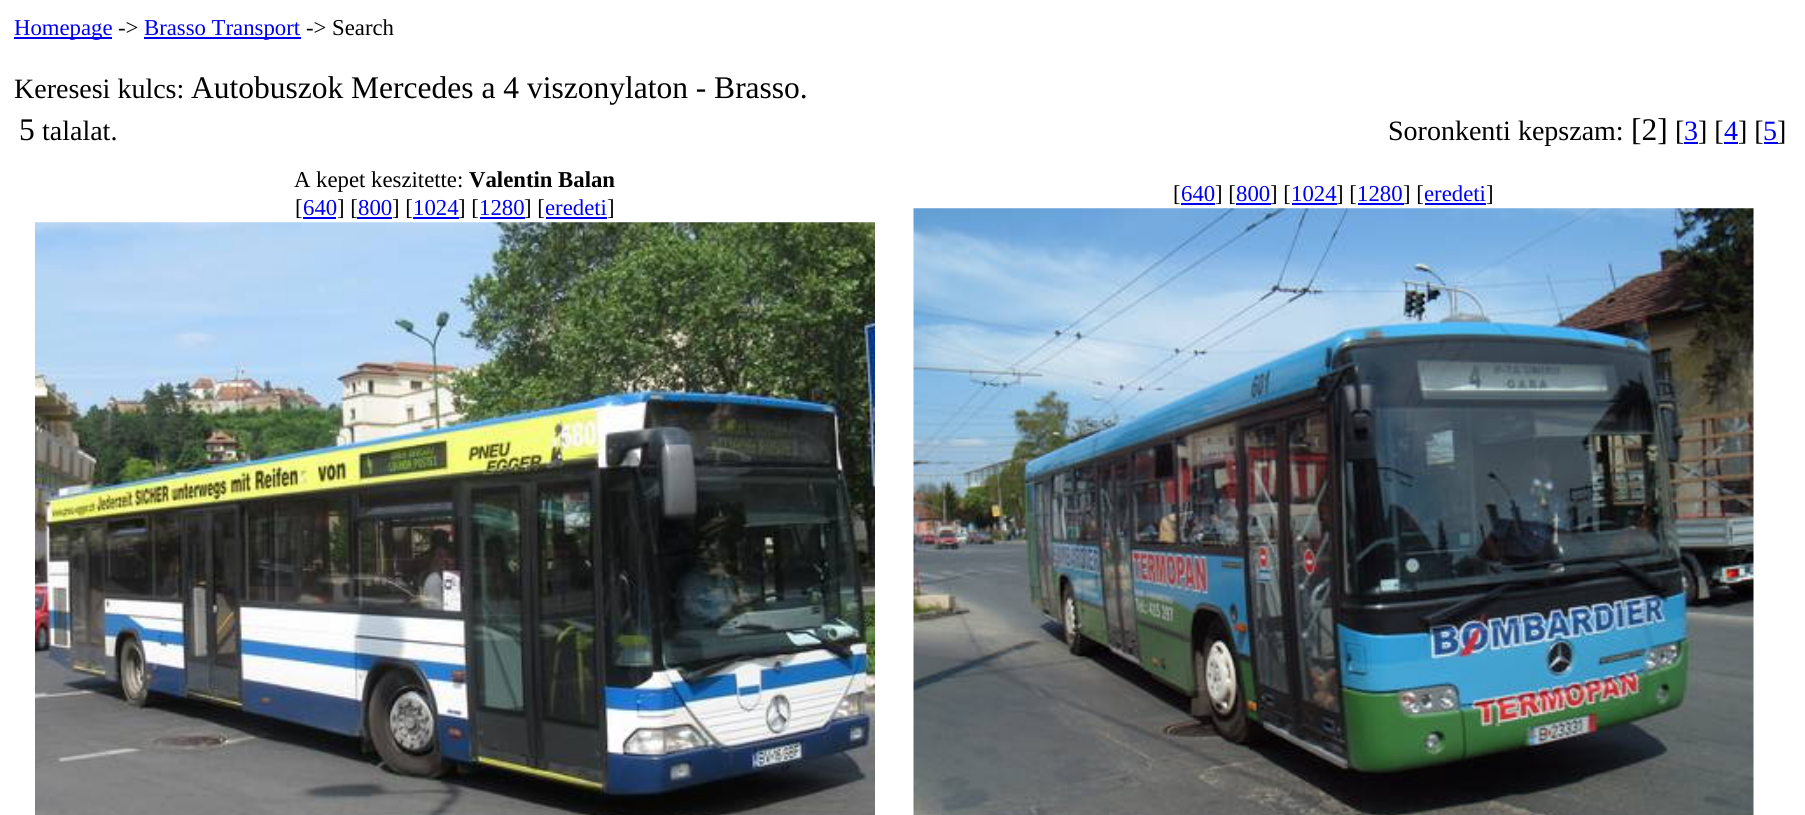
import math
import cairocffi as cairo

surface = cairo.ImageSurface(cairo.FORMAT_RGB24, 1805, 815)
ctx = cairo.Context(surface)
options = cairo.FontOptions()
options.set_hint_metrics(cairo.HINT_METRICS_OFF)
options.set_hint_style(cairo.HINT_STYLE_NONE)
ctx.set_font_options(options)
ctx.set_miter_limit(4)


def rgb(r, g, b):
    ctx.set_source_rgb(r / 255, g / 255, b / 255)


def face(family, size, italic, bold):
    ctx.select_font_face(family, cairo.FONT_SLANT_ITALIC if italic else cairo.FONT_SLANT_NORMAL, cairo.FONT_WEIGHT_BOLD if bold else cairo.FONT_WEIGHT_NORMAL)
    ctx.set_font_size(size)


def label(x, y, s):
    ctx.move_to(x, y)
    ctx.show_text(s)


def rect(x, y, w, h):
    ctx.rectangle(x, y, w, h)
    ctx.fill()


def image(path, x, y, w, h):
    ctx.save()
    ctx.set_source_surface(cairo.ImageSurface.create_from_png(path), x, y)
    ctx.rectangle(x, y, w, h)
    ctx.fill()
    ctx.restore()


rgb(255, 255, 255)
ctx.paint()
rgb(0, 0, 238)
rect(14, 37, 98, 2)
face('Liberation Serif', 22.75, 0, 0)
label(14, 35, 'Homepage')
rgb(0, 0, 0)
label(118, 35, '->')
rgb(0, 0, 238)
rect(144, 37, 157, 2)
label(144, 35, 'Brasso Transport')
rgb(0, 0, 0)
label(306, 35, '-> Search')
face('Liberation Serif', 28, 0, 0)
label(14, 98, 'Keresesi kulcs:')
face('Liberation Serif', 31.5, 0, 0)
label(191, 98, 'Autobuszok Mercedes a 4 viszonylaton - Brasso.')
label(19, 140, '5')
face('Liberation Serif', 28, 0, 0)
label(42, 140, 'talalat.')
label(1388, 140, 'Soronkenti kepszam:')
face('Liberation Serif', 31.5, 0, 0)
label(1631, 140, '[2]')
face('Liberation Serif', 28, 0, 0)
label(1675, 140, '[')
rgb(0, 0, 238)
label(1684, 140, '3')
rect(1684, 142, 14, 2)
rgb(0, 0, 0)
label(1698, 140, '] [')
rgb(0, 0, 238)
label(1724, 140, '4')
rect(1724, 142, 14, 2)
rgb(0, 0, 0)
label(1738, 140, '] [')
rgb(0, 0, 238)
label(1763, 140, '5')
rect(1764, 142, 14, 2)
rgb(0, 0, 0)
label(1777, 140, ']')
face('Liberation Serif', 22.75, 0, 0)
label(294, 187, 'A kepet keszitette:')
face('Liberation Serif', 22.75, 0, 1)
label(469, 187, 'Valentin Balan')
face('Liberation Serif', 22.75, 0, 0)
label(295, 215, '[')
rgb(0, 0, 238)
rect(303, 217, 33, 2)
label(303, 215, '640')
rgb(0, 0, 0)
label(337, 215, '] [')
rgb(0, 0, 238)
rect(357, 217, 35, 2)
label(358, 215, '800')
rgb(0, 0, 0)
label(392, 215, '] [')
rgb(0, 0, 238)
label(413, 215, '1024')
rect(413, 217, 46, 2)
rgb(0, 0, 0)
label(458, 215, '] [')
rgb(0, 0, 238)
label(479, 215, '1280')
rgb(0, 0, 0)
label(524, 215, '] [')
rgb(0, 0, 238)
rect(480, 217, 45, 2)
rect(546, 217, 61, 2)
label(545, 215, 'eredeti')
rgb(0, 0, 0)
label(607, 215, ']')
image('image0.png', 35, 222, 840, 593)
label(1173, 201, '[')
rgb(0, 0, 238)
rect(1181, 203, 34, 2)
label(1181, 201, '640')
rgb(0, 0, 0)
label(1215, 201, '] [')
rgb(0, 0, 238)
rect(1236, 203, 35, 2)
label(1236, 201, '800')
rgb(0, 0, 0)
label(1270, 201, '] [')
rgb(0, 0, 238)
label(1291, 201, '1024')
rgb(0, 0, 0)
label(1336, 201, '] [')
rgb(0, 0, 238)
rect(1292, 203, 45, 2)
label(1357, 201, '1280')
rect(1358, 203, 46, 2)
rgb(0, 0, 0)
label(1403, 201, '] [')
rgb(0, 0, 238)
label(1424, 201, 'eredeti')
rgb(0, 0, 0)
label(1486, 201, ']')
rgb(0, 0, 238)
rect(1425, 203, 61, 2)
image('image1.png', 913, 208, 841, 607)
surface.write_to_png('render.png')
